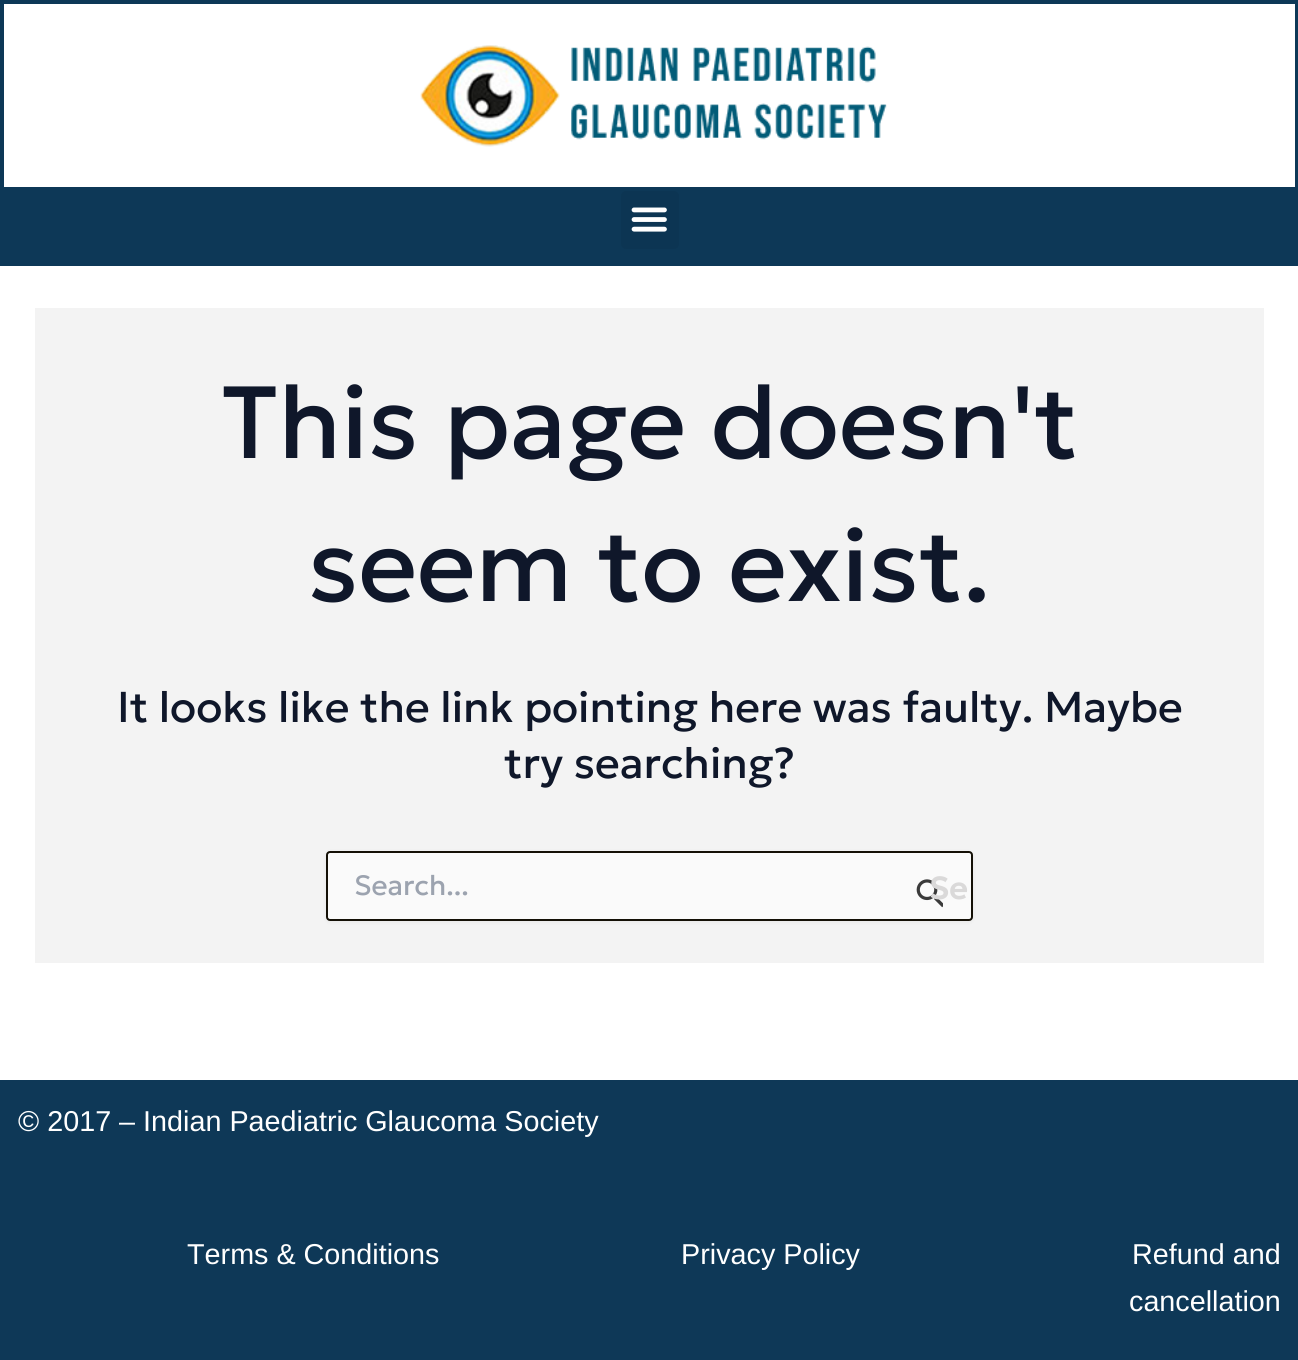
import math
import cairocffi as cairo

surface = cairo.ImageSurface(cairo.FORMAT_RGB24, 1298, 1360)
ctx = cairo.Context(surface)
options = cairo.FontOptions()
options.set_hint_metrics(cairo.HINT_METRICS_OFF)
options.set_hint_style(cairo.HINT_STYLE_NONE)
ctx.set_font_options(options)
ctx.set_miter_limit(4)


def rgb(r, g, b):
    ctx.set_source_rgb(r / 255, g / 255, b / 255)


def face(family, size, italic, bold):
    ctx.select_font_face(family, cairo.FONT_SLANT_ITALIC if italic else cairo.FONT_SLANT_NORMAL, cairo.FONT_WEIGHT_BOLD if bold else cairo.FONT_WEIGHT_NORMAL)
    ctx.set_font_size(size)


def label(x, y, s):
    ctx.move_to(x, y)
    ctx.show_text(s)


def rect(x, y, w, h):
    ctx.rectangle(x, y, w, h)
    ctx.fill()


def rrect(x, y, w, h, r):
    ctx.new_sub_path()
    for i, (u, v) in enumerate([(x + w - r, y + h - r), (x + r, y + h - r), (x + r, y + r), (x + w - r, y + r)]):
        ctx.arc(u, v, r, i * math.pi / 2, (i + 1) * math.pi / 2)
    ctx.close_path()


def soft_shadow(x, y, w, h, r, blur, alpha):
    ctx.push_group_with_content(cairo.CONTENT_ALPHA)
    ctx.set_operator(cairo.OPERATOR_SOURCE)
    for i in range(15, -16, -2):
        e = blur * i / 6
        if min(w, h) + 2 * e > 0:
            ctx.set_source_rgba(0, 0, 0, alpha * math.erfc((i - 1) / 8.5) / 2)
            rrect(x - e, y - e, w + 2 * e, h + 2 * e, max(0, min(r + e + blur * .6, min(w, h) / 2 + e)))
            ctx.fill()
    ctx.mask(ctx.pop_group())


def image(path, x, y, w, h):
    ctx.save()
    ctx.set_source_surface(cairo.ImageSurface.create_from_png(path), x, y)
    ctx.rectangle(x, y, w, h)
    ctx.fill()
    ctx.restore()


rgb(255, 255, 255)
ctx.paint()
ctx.rectangle(2, 2, 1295, 187)
rgb(13, 56, 87)
ctx.set_line_width(4)
ctx.stroke()
image('image0.png', 420, 45, 467, 102)
rect(0, 191, 1298, 75)
rgb(12, 53, 83)
rrect(621, 191, 58, 58, 5)
ctx.fill()
image('image1.png', 631, 207, 36, 25)
rgb(243, 243, 243)
rect(35, 308, 1229, 655)
face('Geologica', 102.25, 0, 0)
rgb(15, 23, 42)
label(221, 458, 'This page doesn\'t')
label(308, 601, 'seem to exist.')
face('Geologica', 43.1, 0, 0)
label(117, 722, 'It looks like the link pointing here was faulty. Maybe')
label(504, 778, 'try searching?')
rgb(0, 0, 0)
soft_shadow(326, 852, 647, 70, 4, 2, 0.05)
rgb(250, 250, 250)
rrect(327, 852, 645, 68, 3)
ctx.fill_preserve()
rgb(20, 16, 6)
ctx.set_line_width(2)
ctx.stroke()
face('Geologica', 28, 0, 0)
rgb(156, 163, 175)
label(354, 895, 'Search...')
image('image2.png', 916, 879, 27, 29)
face('Geologica SemiBold', 32, 0, 0)
rgb(218, 217, 217)
label(929, 899, 'Se')
rgb(14, 56, 87)
rect(0, 1080, 1298, 280)
face('Liberation Sans', 28.75, 0, 0)
rgb(255, 255, 255)
label(18, 1131, '© 2017 – Indian Paediatric Glaucoma Society')
label(187, 1264, 'Terms & Conditions')
label(681, 1264, 'Privacy Policy')
label(1132, 1264, 'Refund and')
label(1129, 1311, 'cancellation')
surface.write_to_png('render.png')
